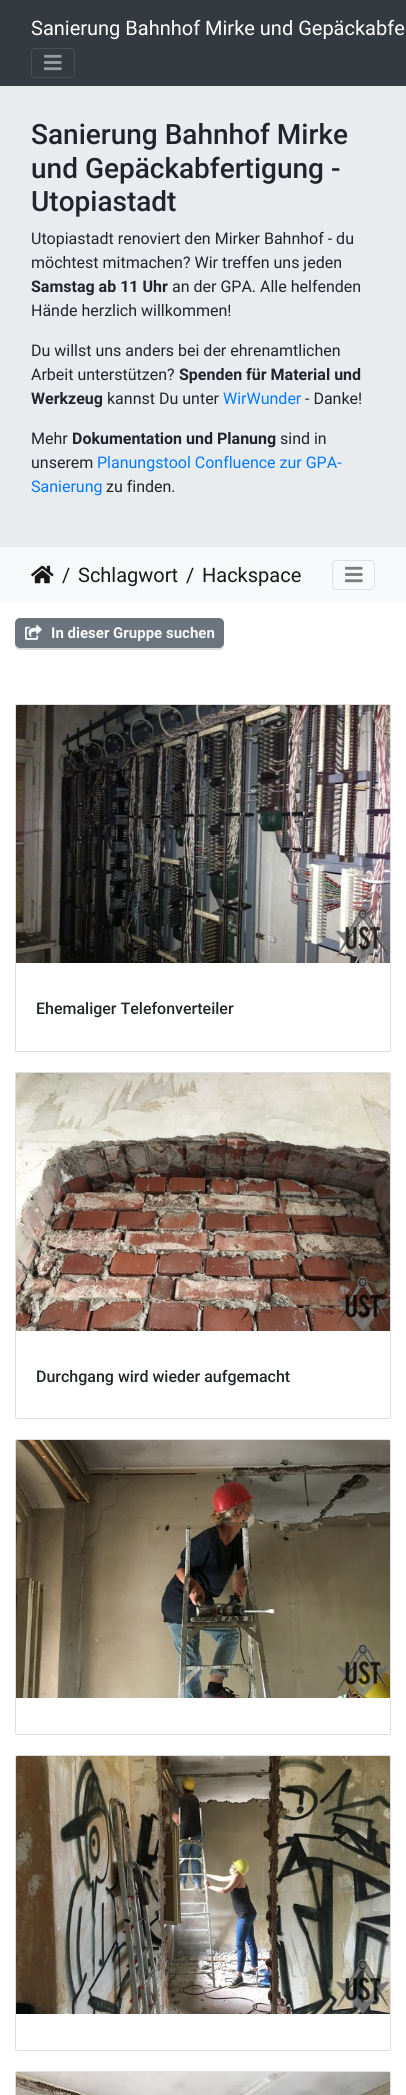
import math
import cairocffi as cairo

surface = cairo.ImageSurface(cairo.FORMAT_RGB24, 406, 2095)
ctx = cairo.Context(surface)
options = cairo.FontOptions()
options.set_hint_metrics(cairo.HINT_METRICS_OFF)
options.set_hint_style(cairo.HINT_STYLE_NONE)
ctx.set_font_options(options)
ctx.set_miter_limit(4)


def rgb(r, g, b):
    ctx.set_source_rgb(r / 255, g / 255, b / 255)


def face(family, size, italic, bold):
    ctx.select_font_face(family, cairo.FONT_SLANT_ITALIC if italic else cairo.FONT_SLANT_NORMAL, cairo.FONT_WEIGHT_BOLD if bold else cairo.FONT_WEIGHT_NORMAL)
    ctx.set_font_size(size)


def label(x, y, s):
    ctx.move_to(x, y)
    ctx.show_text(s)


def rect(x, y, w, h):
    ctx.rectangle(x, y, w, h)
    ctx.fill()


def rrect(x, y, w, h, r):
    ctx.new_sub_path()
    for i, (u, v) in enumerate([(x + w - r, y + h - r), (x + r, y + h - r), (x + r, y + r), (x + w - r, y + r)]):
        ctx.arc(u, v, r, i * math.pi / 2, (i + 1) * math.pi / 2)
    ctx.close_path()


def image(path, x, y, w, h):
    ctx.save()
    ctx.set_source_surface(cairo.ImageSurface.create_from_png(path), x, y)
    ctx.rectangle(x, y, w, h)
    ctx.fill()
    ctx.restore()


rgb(255, 255, 255)
ctx.paint()
rgb(52, 58, 64)
rect(0, 0, 406, 86)
face('Roboto', 20, 0, 0)
rgb(255, 255, 255)
label(31, 35, 'Sanierung Bahnhof Mirke und Gepäckabfe')
rrect(31.5, 48.5, 43, 29, 3.5)
rgb(72, 78, 83)
ctx.set_line_width(1)
ctx.stroke()
image('image0.png', 44, 54, 18, 17)
rgb(233, 236, 239)
rect(0, 86, 406, 461)
face('Roboto Medium', 28, 0, 0)
rgb(33, 37, 41)
label(31, 144, 'Sanierung Bahnhof Mirke')
label(31, 178, 'und Gepäckabfertigung -')
label(31, 211, 'Utopiastadt')
face('Roboto', 16, 0, 0)
label(31, 244, 'Utopiastadt renoviert den Mirker Bahnhof - du')
label(31, 268, 'möchtest mitmachen? Wir treffen uns jeden')
face('Roboto', 16, 0, 1)
label(31, 292, 'Samstag ab 11 Uhr')
face('Roboto', 16, 0, 0)
label(172, 292, 'an der GPA. Alle helfenden')
label(31, 316, 'Hände herzlich willkommen!')
label(31, 356, 'Du willst uns anders bei der ehrenamtlichen')
label(31, 380, 'Arbeit unterstützen?')
face('Roboto', 16, 0, 1)
label(179, 380, 'Spenden für Material und')
label(31, 404, 'Werkzeug')
face('Roboto', 16, 0, 0)
label(107, 404, 'kannst Du unter')
rgb(0, 123, 255)
label(223, 404, 'WirWunder')
rgb(33, 37, 41)
label(305, 404, '- Danke!')
label(31, 444, 'Mehr')
face('Roboto', 16, 0, 1)
label(72, 444, 'Dokumentation und Planung')
face('Roboto', 16, 0, 0)
label(280, 444, 'sind in')
label(31, 468, 'unserem')
rgb(0, 123, 255)
label(97, 468, 'Planungstool Confluence zur GPA-')
label(31, 492, 'Sanierung')
rgb(33, 37, 41)
label(106, 492, 'zu finden.')
rgb(248, 249, 250)
rect(0, 547, 406, 56)
image('image1.png', 31, 565, 23, 19)
face('Roboto', 20, 0, 0)
rgb(25, 25, 25)
label(62, 582, '/')
label(78, 582, 'Schlagwort')
label(186, 582, '/')
label(202, 582, 'Hackspace')
rrect(332.5, 560.5, 42, 29, 3.5)
rgb(223, 224, 225)
ctx.stroke()
image('image2.png', 345, 566, 18, 17)
rgb(219, 219, 219)
ctx.new_path()
ctx.move_to(15, 643)
ctx.line_to(15, 645)
ctx.curve_to(15, 648, 17, 650, 20, 650)
ctx.line_to(219, 650)
ctx.curve_to(222, 650, 224, 648, 224, 645)
ctx.line_to(224, 643)
ctx.curve_to(224, 646, 222, 648, 219, 648)
ctx.line_to(20, 648)
ctx.curve_to(17, 648, 15, 646, 15, 643)
ctx.close_path()
ctx.fill()
rgb(108, 117, 125)
rrect(15, 618, 209, 30, 5)
ctx.fill()
image('image3.png', 25, 624, 17, 16)
face('Roboto', 15, 0, 1)
rgb(248, 249, 250)
label(51, 638, 'In dieser Gruppe suchen')
rrect(15.5, 704.5, 375, 347, 1.5)
rgb(223, 223, 223)
ctx.stroke()
image('image4.png', 16, 705, 374, 258)
face('Roboto Medium', 16, 0, 0)
rgb(33, 37, 41)
label(36, 1014, 'Ehemaliger Telefonverteiler')
rrect(15.5, 1072.5, 375, 346, 1.5)
rgb(223, 223, 223)
ctx.stroke()
image('image5.png', 16, 1073, 374, 258)
rgb(33, 37, 41)
label(36, 1382, 'Durchgang wird wieder aufgemacht')
rrect(15.5, 1439.5, 375, 295, 1.5)
rgb(223, 223, 223)
ctx.stroke()
image('image6.png', 16, 1440, 374, 258)
rrect(15.5, 1755.5, 375, 295, 1.5)
ctx.stroke()
image('image7.png', 16, 1756, 374, 258)
rrect(15.5, 2071.5, 375, 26, 1.5)
ctx.stroke()
image('image8.png', 16, 2072, 374, 23)
surface.write_to_png('render.png')
